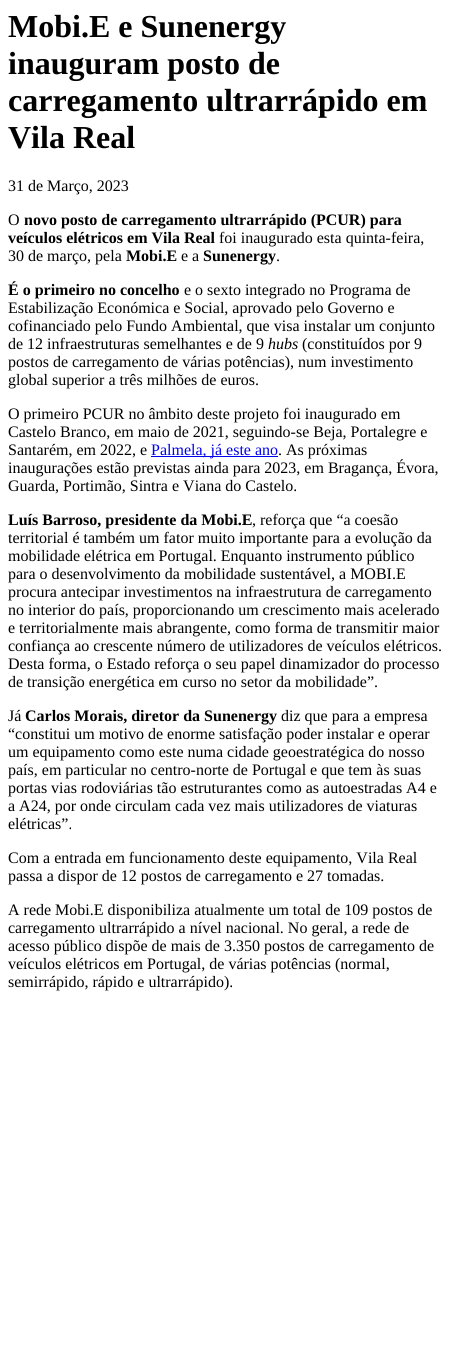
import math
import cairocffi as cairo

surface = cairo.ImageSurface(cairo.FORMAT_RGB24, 452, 1346)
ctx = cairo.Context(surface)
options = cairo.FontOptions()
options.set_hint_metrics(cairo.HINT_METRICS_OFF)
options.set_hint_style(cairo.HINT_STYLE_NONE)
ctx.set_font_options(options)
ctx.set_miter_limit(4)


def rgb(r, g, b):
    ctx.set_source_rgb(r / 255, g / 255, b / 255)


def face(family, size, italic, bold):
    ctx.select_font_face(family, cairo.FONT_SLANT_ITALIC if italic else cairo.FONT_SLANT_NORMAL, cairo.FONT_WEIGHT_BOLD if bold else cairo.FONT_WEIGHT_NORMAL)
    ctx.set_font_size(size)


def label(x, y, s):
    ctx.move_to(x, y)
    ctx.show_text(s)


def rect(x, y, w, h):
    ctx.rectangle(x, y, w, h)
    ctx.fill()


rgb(255, 255, 255)
ctx.paint()
face('Liberation Serif', 32, 0, 1)
rgb(0, 0, 0)
label(8, 37, 'Mobi.E e Sunenergy')
label(8, 74, 'inauguram posto de')
label(8, 111, 'carregamento ultrarrápido em')
label(8, 148, 'Vila Real')
face('Liberation Serif', 16, 0, 0)
label(8, 191, '31 de Março, 2023')
label(8, 225, 'O')
face('Liberation Serif', 16, 0, 1)
label(24, 225, 'novo posto de carregamento ultrarrápido (PCUR) para')
label(8, 243, 'veículos elétricos em Vila Real')
face('Liberation Serif', 16, 0, 0)
label(219, 243, 'foi inaugurado esta quinta-feira,')
label(8, 261, '30 de março, pela')
face('Liberation Serif', 16, 0, 1)
label(126, 261, 'Mobi.E')
face('Liberation Serif', 16, 0, 0)
label(181, 261, 'e a')
face('Liberation Serif', 16, 0, 1)
label(203, 261, 'Sunenergy')
face('Liberation Serif', 16, 0, 0)
label(276, 261, '.')
face('Liberation Serif', 16, 0, 1)
label(8, 295, 'É o primeiro no concelho')
face('Liberation Serif', 16, 0, 0)
label(184, 295, 'e o sexto integrado no Programa de')
label(8, 313, 'Estabilização Económica e Social, aprovado pelo Governo e')
label(8, 331, 'cofinanciado pelo Fundo Ambiental, que visa instalar um conjunto')
label(8, 349, 'de 12 infraestruturas semelhantes e de 9')
face('Liberation Serif', 16, 1, 0)
label(268, 349, 'hubs')
face('Liberation Serif', 16, 0, 0)
label(302, 349, '(constituídos por 9')
label(8, 367, 'postos de carregamento de várias potências), num investimento')
label(8, 385, 'global superior a três milhões de euros.')
label(8, 419, 'O primeiro PCUR no âmbito deste projeto foi inaugurado em')
label(8, 437, 'Castelo Branco, em maio de 2021, seguindo-se Beja, Portalegre e')
label(8, 455, 'Santarém, em 2022, e')
rgb(0, 0, 238)
rect(151, 456, 127, 1)
label(151, 455, 'Palmela, já este ano')
rgb(0, 0, 0)
label(278, 455, '. As próximas')
label(8, 473, 'inaugurações estão previstas ainda para 2023, em Bragança, Évora,')
label(8, 491, 'Guarda, Portimão, Sintra e Viana do Castelo.')
face('Liberation Serif', 16, 0, 1)
label(8, 525, 'Luís Barroso, presidente da Mobi.E')
face('Liberation Serif', 16, 0, 0)
label(252, 525, ', reforça que “a coesão')
label(8, 543, 'territorial é também um fator muito importante para a evolução da')
label(8, 561, 'mobilidade elétrica em Portugal. Enquanto instrumento público')
label(8, 579, 'para o desenvolvimento da mobilidade sustentável, a MOBI.E')
label(8, 597, 'procura antecipar investimentos na infraestrutura de carregamento')
label(8, 615, 'no interior do país, proporcionando um crescimento mais acelerado')
label(8, 633, 'e territorialmente mais abrangente, como forma de transmitir maior')
label(8, 651, 'confiança ao crescente número de utilizadores de veículos elétricos.')
label(8, 669, 'Desta forma, o Estado reforça o seu papel dinamizador do processo')
label(8, 687, 'de transição energética em curso no setor da mobilidade”.')
label(8, 721, 'Já')
face('Liberation Serif', 16, 0, 1)
label(25, 721, 'Carlos Morais, diretor da Sunenergy')
face('Liberation Serif', 16, 0, 0)
label(281, 721, 'diz que para a empresa')
label(8, 739, '“constitui um motivo de enorme satisfação poder instalar e operar')
label(8, 757, 'um equipamento como este numa cidade geoestratégica do nosso')
label(8, 775, 'país, em particular no centro-norte de Portugal e que tem às suas')
label(8, 793, 'portas vias rodoviárias tão estruturantes como as autoestradas A4 e')
label(8, 811, 'a A24, por onde circulam cada vez mais utilizadores de viaturas')
label(8, 829, 'elétricas”.')
label(8, 863, 'Com a entrada em funcionamento deste equipamento, Vila Real')
label(8, 881, 'passa a dispor de 12 postos de carregamento e 27 tomadas.')
label(8, 915, 'A rede Mobi.E disponibiliza atualmente um total de 109 postos de')
label(8, 933, 'carregamento ultrarrápido a nível nacional. No geral, a rede de')
label(8, 951, 'acesso público dispõe de mais de 3.350 postos de carregamento de')
label(8, 969, 'veículos elétricos em Portugal, de várias potências (normal,')
label(8, 987, 'semirrápido, rápido e ultrarrápido).')
surface.write_to_png('render.png')
